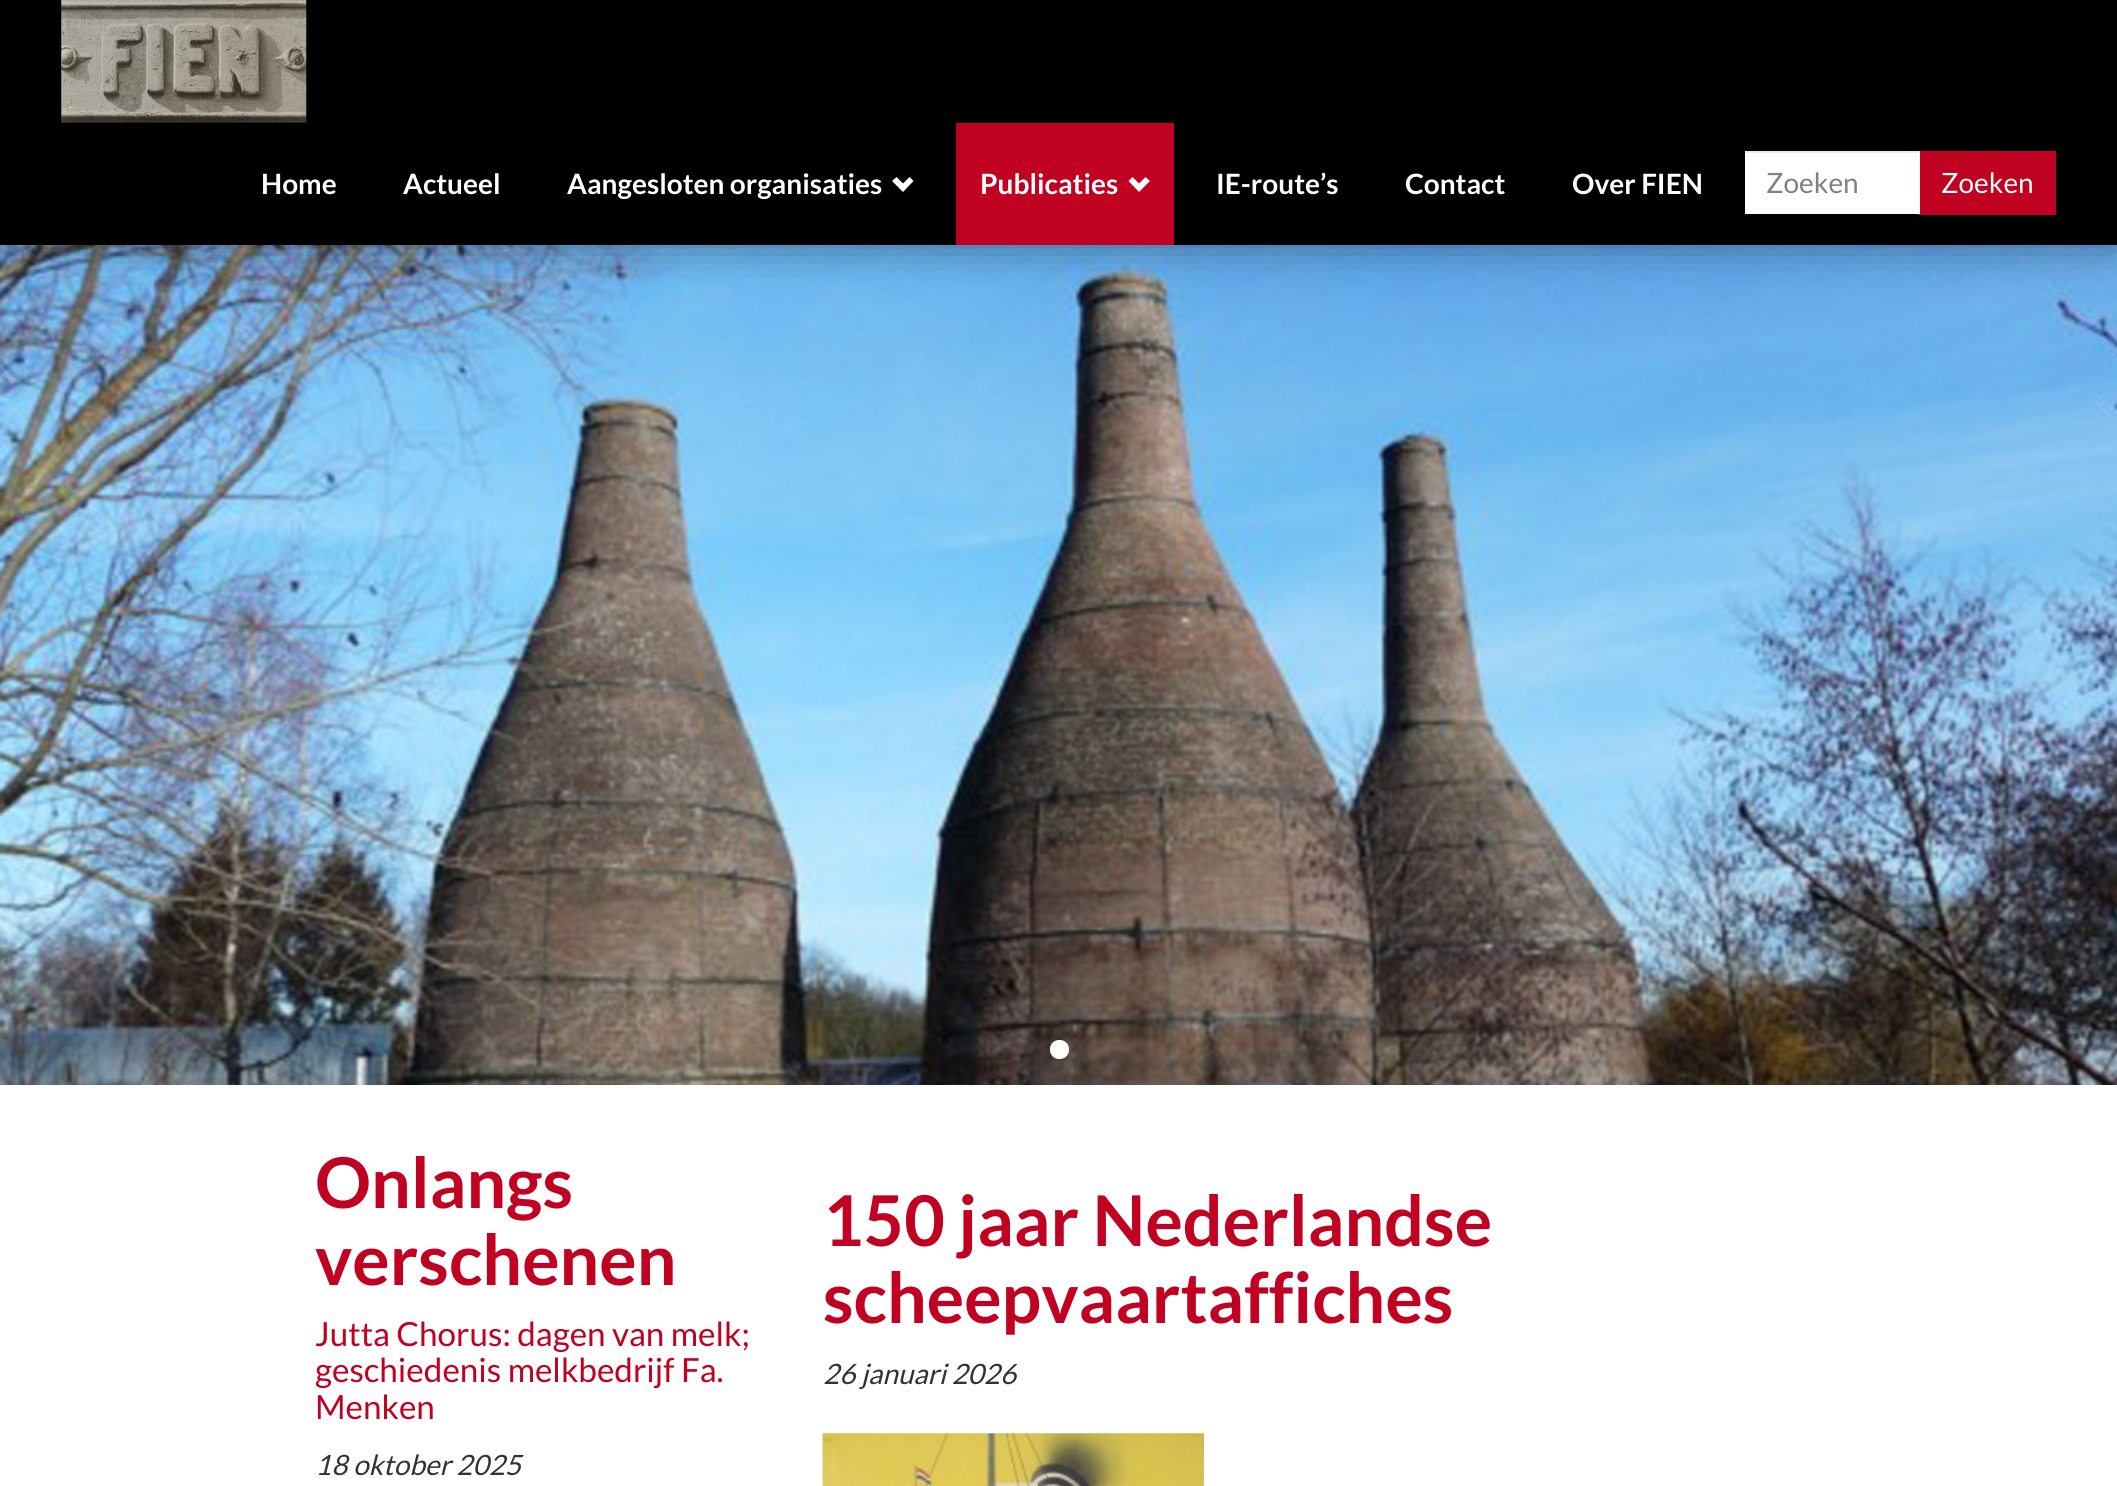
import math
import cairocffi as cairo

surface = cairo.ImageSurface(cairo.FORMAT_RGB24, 2117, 1486)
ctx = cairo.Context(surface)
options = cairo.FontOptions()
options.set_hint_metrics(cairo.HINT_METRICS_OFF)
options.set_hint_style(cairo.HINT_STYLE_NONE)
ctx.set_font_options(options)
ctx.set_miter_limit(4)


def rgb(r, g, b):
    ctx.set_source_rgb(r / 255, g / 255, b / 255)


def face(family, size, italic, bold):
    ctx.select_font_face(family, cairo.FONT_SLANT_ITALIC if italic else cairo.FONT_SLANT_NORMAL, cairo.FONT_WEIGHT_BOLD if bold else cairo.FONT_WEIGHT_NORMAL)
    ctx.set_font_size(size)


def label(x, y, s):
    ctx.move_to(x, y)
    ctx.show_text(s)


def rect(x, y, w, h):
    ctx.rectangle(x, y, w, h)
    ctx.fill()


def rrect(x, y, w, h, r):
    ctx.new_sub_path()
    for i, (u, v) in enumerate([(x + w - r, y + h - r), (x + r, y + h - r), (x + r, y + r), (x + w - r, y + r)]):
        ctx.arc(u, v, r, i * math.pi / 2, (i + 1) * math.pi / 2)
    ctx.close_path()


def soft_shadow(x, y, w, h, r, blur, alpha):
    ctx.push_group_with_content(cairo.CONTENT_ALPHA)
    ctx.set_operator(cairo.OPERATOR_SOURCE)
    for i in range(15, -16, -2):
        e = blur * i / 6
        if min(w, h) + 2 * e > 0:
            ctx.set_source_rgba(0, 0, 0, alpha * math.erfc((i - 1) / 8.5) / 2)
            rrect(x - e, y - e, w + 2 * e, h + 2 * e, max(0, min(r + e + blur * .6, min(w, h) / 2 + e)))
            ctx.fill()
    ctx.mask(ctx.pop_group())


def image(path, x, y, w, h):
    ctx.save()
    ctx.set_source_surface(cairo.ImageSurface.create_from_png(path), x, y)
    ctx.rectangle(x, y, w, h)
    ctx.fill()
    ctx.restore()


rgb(255, 255, 255)
ctx.paint()
image('image1.png', 0, 245, 2117, 840)
rgb(0, 0, 0)
soft_shadow(0, 0, 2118, 245, 0, 22, 0.4)
rgb(0, 0, 0)
rect(0, 0, 2117, 245)
image('image0.png', 61, 0, 246, 123)
face('Lato', 28, 0, 1)
rgb(255, 255, 255)
label(261, 194, 'Home')
label(403, 194, 'Actueel')
label(567, 194, 'Aangesloten organisaties')
ctx.new_path()
ctx.move_to(892, 181)
ctx.line_to(903, 192)
ctx.line_to(913.5, 181)
ctx.line_to(909.5, 177)
ctx.line_to(903, 183.5)
ctx.line_to(896.5, 177)
ctx.close_path()
ctx.fill()
rgb(193, 1, 33)
rect(956, 123, 218, 122)
rgb(255, 255, 255)
label(980, 194, 'Publicaties')
ctx.new_path()
ctx.move_to(1128.5, 181)
ctx.line_to(1139, 192)
ctx.line_to(1150, 181)
ctx.line_to(1145.5, 177)
ctx.line_to(1139, 183.5)
ctx.line_to(1132.5, 177)
ctx.close_path()
ctx.fill()
label(1216, 194, 'IE-route’s')
label(1405, 194, 'Contact')
label(1572, 194, 'Over FIEN')
rgb(193, 1, 33)
rect(1918, 151, 138, 64)
rgb(255, 255, 255)
rect(1745, 153, 175, 61)
rgb(236, 236, 236)
rect(1745, 151, 175, 2)
face('Lato', 28, 0, 0)
rgb(128, 128, 128)
label(1766, 193, 'Zoeken')
rgb(255, 255, 255)
label(1941, 193, 'Zoeken')
rrect(1050, 1040, 19, 19, 9)
ctx.fill()
face('Lato', 70, 0, 1)
rgb(193, 1, 33)
label(315, 1208, 'Onlangs')
label(315, 1285, 'verschenen')
face('Lato', 33.25, 0, 0)
label(315, 1346, 'Jutta Chorus: dagen van melk;')
label(315, 1382, 'geschiedenis melkbedrijf Fa.')
label(315, 1419, 'Menken')
face('Lato', 28, 1, 0)
rgb(51, 51, 51)
label(315, 1475, '18 oktober 2025')
face('Lato', 70, 0, 1)
rgb(193, 1, 33)
label(823, 1246, '150 jaar Nederlandse')
label(823, 1323, 'scheepvaartaffiches')
face('Lato', 28, 1, 0)
rgb(51, 51, 51)
label(823, 1384, '26 januari 2026')
image('image2.png', 822, 1433, 382, 53)
surface.write_to_png('render.png')
